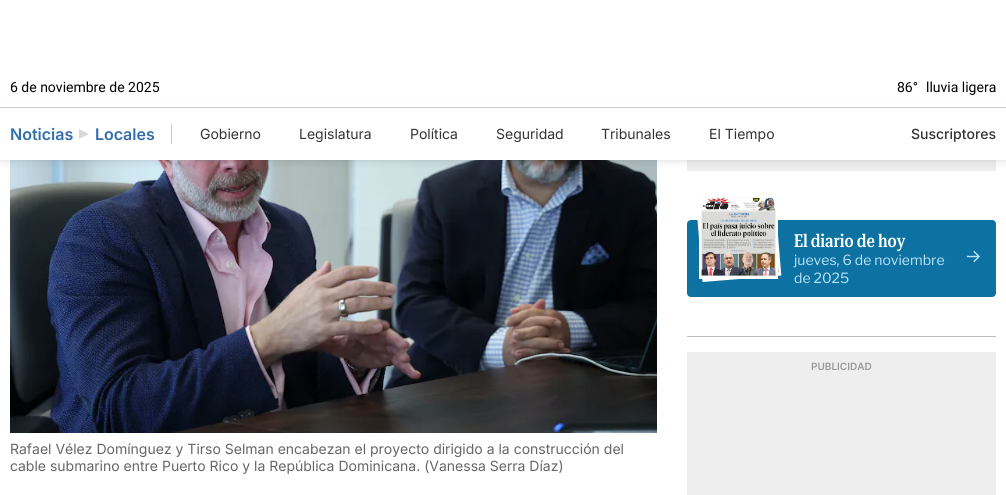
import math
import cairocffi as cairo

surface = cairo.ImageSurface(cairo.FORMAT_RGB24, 1006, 495)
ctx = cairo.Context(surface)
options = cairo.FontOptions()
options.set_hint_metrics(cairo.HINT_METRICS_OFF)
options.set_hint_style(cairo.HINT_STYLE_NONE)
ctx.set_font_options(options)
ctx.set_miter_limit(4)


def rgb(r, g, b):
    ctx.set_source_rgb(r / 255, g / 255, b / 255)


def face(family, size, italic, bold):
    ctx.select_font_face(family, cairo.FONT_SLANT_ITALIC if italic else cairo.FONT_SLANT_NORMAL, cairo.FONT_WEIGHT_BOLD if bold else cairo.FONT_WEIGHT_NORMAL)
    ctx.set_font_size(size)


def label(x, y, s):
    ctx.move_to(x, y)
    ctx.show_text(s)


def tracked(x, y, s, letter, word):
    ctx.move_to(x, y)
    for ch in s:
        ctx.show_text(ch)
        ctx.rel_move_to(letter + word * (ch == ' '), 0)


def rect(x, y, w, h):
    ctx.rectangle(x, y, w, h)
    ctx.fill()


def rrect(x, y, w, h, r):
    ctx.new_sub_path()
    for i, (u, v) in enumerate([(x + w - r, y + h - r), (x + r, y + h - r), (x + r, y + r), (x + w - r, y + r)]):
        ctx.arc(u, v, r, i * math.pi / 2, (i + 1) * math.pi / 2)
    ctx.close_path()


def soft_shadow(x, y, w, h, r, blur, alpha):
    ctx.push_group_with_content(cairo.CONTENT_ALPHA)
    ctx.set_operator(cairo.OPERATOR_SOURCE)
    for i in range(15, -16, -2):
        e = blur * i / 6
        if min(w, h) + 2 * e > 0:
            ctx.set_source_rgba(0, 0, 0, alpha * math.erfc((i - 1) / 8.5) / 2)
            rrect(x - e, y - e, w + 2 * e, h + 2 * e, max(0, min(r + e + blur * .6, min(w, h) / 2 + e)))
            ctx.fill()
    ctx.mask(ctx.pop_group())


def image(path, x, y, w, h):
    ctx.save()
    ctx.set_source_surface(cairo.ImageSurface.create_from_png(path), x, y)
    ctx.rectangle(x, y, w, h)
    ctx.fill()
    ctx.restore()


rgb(255, 255, 255)
ctx.paint()
rgb(238, 238, 238)
rect(687, 160, 309, 11)
image('image3.png', 10, 160, 647, 273)
rgb(0, 0, 0)
soft_shadow(0, 107, 1006, 53, 0, 5, 0.15)
rgb(255, 255, 255)
rect(0, 100, 1006, 7)
face('Roboto', 14, 0, 0)
rgb(0, 0, 0)
label(10, 92, '6 de noviembre de 2025')
label(897, 92, '86°')
label(926, 92, 'lluvia ligera')
rgb(255, 255, 255)
rect(0, 108, 1006, 52)
rgb(204, 204, 204)
rect(0, 107, 1006, 1)
rect(171, 124, 1, 20)
face('Inter SemiBold', 16, 0, 0)
rgb(50, 110, 171)
label(10, 140, 'Noticias')
rgb(217, 217, 217)
ctx.new_path()
ctx.move_to(79, 139)
ctx.line_to(79, 129)
ctx.line_to(89, 134)
ctx.close_path()
ctx.fill()
rgb(50, 110, 171)
label(95, 140, 'Locales')
face('Inter', 14, 0, 0)
rgb(51, 51, 51)
label(200, 139, 'Gobierno')
label(299, 139, 'Legislatura')
label(410, 139, 'Política')
label(496, 139, 'Seguridad')
label(601, 139, 'Tribunales')
label(709, 139, 'El Tiempo')
face('Inter Medium', 14, 0, 0)
label(911, 139, 'Suscriptores')
rgb(13, 114, 161)
rrect(687, 220, 309, 77, 4)
ctx.fill()
image('image1.png', 697, 198, 85, 84)
image('image0.png', 699, 195, 79, 84)
face('Roboto Serif Medium', 18, 0, 0)
rgb(255, 255, 255)
tracked(794, 247, 'El diario de hoy', 0, -0.5)
face('Libre Franklin', 14, 0, 0)
rgb(184, 229, 249)
label(794, 265, 'jueves, 6 de noviembre')
label(794, 283, 'de 2025')
image('image2.png', 966, 250, 14, 13)
rgb(190, 190, 190)
rect(687, 336, 309, 1)
rgb(238, 238, 238)
rect(687, 352, 309, 143)
face('Inter SemiBold', 10, 0, 0)
rgb(153, 153, 153)
label(811, 370, 'PUBLICIDAD')
face('Inter', 14, 0, 0)
rgb(102, 102, 102)
label(10, 454, 'Rafael Vélez Domínguez y Tirso Selman encabezan el proyecto dirigido a la construcción del')
label(10, 471, 'cable submarino entre Puerto Rico y la República Dominicana. (Vanessa Serra Díaz)')
surface.write_to_png('render.png')
